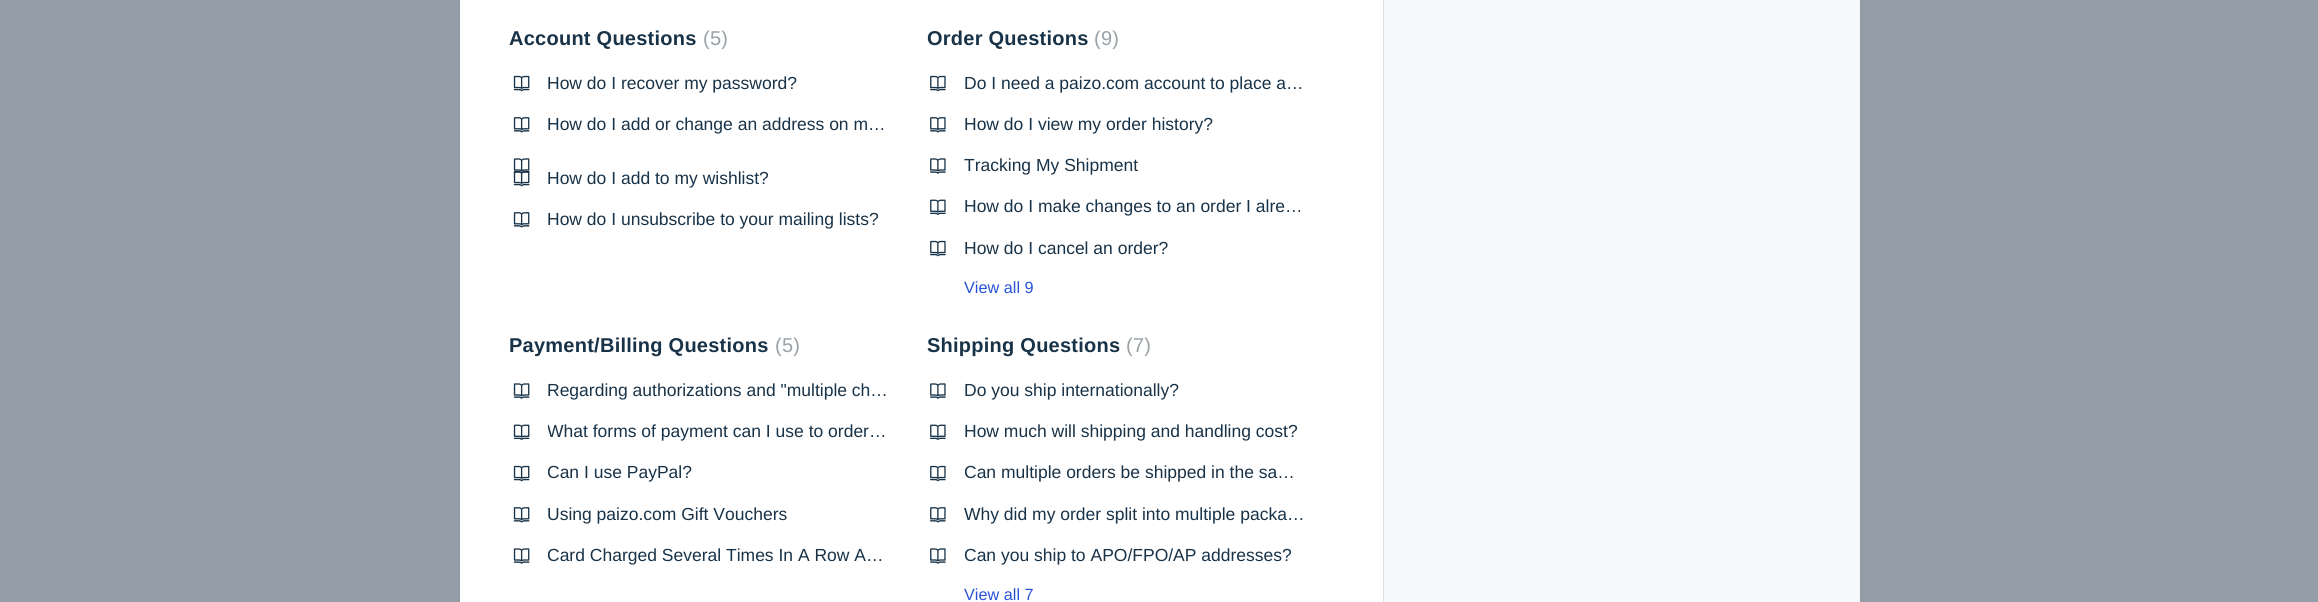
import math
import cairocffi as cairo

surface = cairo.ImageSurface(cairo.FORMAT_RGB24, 2318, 602)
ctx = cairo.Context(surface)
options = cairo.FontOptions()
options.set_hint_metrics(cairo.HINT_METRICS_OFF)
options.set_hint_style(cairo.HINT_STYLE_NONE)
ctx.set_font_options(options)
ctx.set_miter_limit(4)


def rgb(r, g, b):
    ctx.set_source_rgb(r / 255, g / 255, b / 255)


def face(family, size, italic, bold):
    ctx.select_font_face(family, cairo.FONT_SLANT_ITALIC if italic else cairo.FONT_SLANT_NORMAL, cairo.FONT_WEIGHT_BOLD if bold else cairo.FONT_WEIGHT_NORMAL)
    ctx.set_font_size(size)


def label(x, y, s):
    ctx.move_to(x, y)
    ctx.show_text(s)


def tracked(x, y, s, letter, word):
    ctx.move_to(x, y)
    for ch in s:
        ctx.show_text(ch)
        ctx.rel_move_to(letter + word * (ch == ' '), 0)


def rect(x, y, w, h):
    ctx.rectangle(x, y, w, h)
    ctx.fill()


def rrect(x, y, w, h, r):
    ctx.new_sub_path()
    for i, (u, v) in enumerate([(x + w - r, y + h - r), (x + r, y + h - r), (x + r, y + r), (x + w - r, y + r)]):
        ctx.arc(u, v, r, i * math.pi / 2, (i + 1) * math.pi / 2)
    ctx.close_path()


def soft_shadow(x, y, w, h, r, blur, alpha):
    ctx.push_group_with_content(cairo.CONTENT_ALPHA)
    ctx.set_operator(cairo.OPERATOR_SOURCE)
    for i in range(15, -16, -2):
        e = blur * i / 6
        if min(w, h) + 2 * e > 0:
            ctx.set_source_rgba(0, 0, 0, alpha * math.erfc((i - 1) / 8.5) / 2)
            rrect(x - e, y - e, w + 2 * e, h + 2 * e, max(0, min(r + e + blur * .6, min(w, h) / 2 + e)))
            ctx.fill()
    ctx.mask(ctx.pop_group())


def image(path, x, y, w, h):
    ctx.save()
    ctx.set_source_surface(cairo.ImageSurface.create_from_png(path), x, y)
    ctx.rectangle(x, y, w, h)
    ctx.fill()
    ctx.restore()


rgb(148, 158, 168)
ctx.paint()
rgb(63, 63, 68)
soft_shadow(460, -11, 1400, 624, 8, 1, 0.15)
rgb(248, 249, 250)
rect(1384, 0, 476, 602)
rgb(255, 255, 255)
rect(460, 0, 923, 602)
rgb(218, 223, 227)
rect(1383, 0, 1, 602)
face('Liberation Sans', 20, 0, 1)
rgb(24, 50, 71)
tracked(509, 45, 'Account Questions', 0.25, 0)
face('Liberation Sans', 20, 0, 0)
rgb(154, 161, 166)
tracked(703, 45, '(5)', 0.25, 0)
image('image0.png', 513, 75, 17, 17)
face('Liberation Sans', 17.5, 0, 0)
rgb(24, 50, 71)
label(547, 89, 'How do I recover my password?')
image('image1.png', 513, 117, 17, 16)
label(547, 130, 'How do I add or change an address on m…')
image('image2.png', 513, 158, 17, 16)
image('image3.png', 513, 170, 17, 17)
label(547, 184, 'How do I add to my wishlist?')
image('image1.png', 513, 212, 17, 16)
label(547, 225, 'How do I unsubscribe to your mailing lists?')
face('Liberation Sans', 20, 0, 1)
tracked(927, 45, 'Order Questions', 0.25, 0)
face('Liberation Sans', 20, 0, 0)
rgb(154, 161, 166)
tracked(1094, 45, '(9)', 0.25, 0)
image('image4.png', 930, 75, 16, 17)
face('Liberation Sans', 17.5, 0, 0)
rgb(24, 50, 71)
label(964, 89, 'Do I need a paizo.com account to place a…')
image('image5.png', 930, 117, 16, 16)
label(964, 130, 'How do I view my order history?')
image('image6.png', 930, 158, 16, 16)
label(964, 171, 'Tracking My Shipment')
image('image7.png', 930, 199, 16, 16)
label(964, 212, 'How do I make changes to an order I alre…')
image('image4.png', 930, 240, 16, 17)
label(964, 254, 'How do I cancel an order?')
face('Liberation Sans', 16.25, 0, 0)
rgb(39, 83, 215)
label(964, 293, 'View all 9')
face('Liberation Sans', 20, 0, 1)
rgb(24, 50, 71)
tracked(509, 352, 'Payment/Billing Questions', 0.25, 0)
face('Liberation Sans', 20, 0, 0)
rgb(154, 161, 166)
tracked(775, 352, '(5)', 0.25, 0)
image('image2.png', 513, 383, 17, 16)
face('Liberation Sans', 17.5, 0, 0)
rgb(24, 50, 71)
label(547, 396, 'Regarding authorizations and "multiple ch…')
image('image8.png', 513, 424, 17, 16)
ctx.save()
ctx.rectangle(548, 418, 340, 28)
ctx.clip()
label(547, 437, 'What forms of payment can I use to order…')
ctx.restore()
image('image0.png', 513, 465, 17, 17)
ctx.save()
ctx.rectangle(548, 459, 340, 29)
ctx.clip()
label(547, 478, 'Can I use PayPal?')
ctx.restore()
image('image1.png', 513, 507, 17, 16)
label(547, 520, 'Using paizo.com Gift Vouchers')
image('image2.png', 513, 548, 17, 16)
ctx.save()
ctx.rectangle(548, 541, 340, 28)
ctx.clip()
label(547, 561, 'Card Charged Several Times In A Row A…')
ctx.restore()
face('Liberation Sans', 20, 0, 1)
tracked(927, 352, 'Shipping Questions', 0.25, 0)
face('Liberation Sans', 20, 0, 0)
rgb(154, 161, 166)
tracked(1126, 352, '(7)', 0.25, 0)
image('image6.png', 930, 383, 16, 16)
face('Liberation Sans', 17.5, 0, 0)
rgb(24, 50, 71)
label(964, 396, 'Do you ship internationally?')
image('image7.png', 930, 424, 16, 16)
label(964, 437, 'How much will shipping and handling cost?')
image('image4.png', 930, 465, 16, 17)
label(964, 478, 'Can multiple orders be shipped in the sa…')
image('image5.png', 930, 507, 16, 16)
label(964, 520, 'Why did my order split into multiple packa…')
image('image6.png', 930, 548, 16, 16)
label(964, 561, 'Can you ship to APO/FPO/AP addresses?')
face('Liberation Sans', 16.25, 0, 0)
rgb(39, 83, 215)
label(964, 600, 'View all 7')
surface.write_to_png('render.png')
